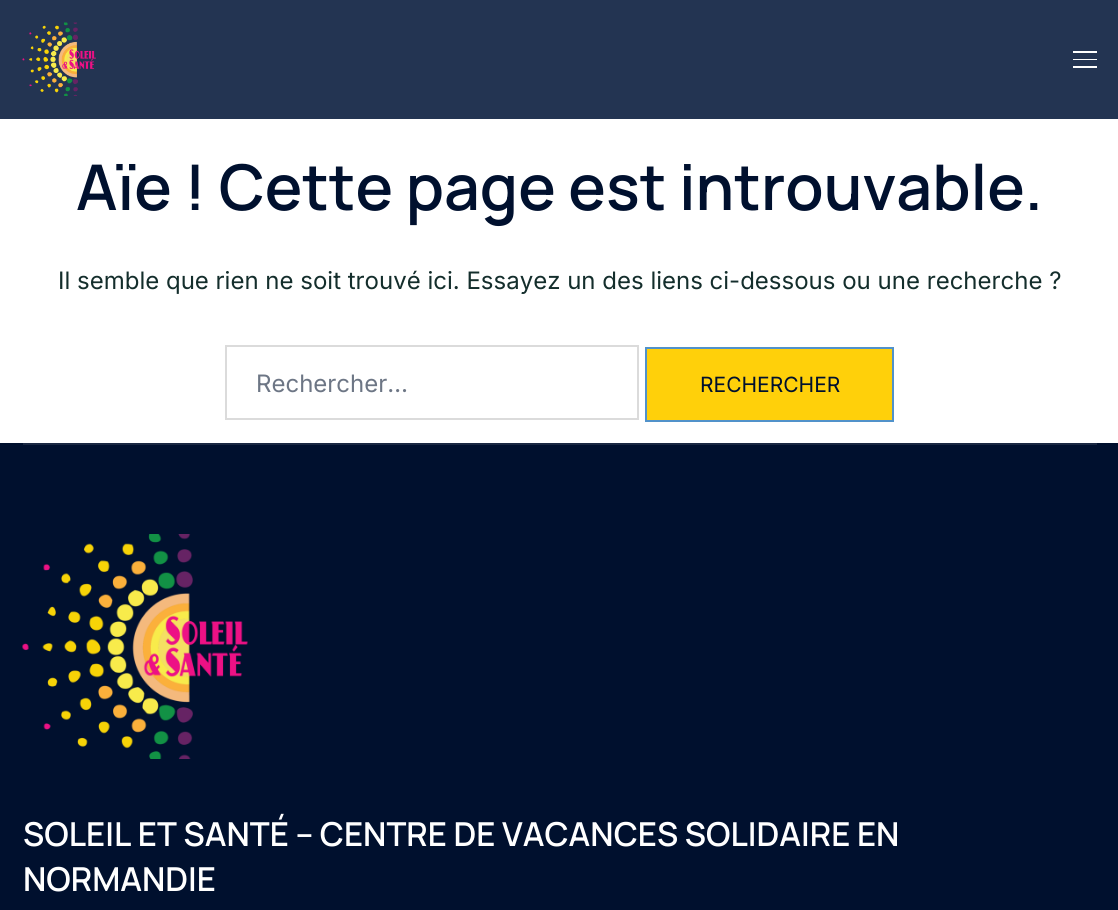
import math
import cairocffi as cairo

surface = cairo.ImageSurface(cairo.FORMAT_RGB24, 1118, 910)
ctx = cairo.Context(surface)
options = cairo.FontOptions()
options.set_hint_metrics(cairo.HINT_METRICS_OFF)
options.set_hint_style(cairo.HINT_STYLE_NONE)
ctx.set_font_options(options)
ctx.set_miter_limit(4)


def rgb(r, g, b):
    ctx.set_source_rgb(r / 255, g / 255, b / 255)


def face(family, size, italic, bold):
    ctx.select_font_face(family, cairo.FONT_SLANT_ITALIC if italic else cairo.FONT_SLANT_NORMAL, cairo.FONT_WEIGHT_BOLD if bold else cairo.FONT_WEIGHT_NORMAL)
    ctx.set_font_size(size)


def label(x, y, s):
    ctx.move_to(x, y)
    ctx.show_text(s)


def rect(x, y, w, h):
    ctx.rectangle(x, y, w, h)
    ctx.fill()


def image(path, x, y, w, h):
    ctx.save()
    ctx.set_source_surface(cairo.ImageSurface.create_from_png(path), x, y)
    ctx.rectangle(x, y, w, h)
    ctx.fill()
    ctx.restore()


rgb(255, 255, 255)
ctx.paint()
rgb(35, 52, 82)
rect(0, 0, 1118, 119)
image('image0.png', 22, 22, 74, 74)
rgb(255, 255, 255)
rect(1073, 51, 24, 2)
rect(1073, 59, 24, 1)
rect(1073, 66, 24, 2)
face('Manrope ExtraLight', 63, 0, 0)
rgb(0, 16, 46)
label(76, 210, 'Aïe ! Cette page est introuvable.')
face('Inter', 24, 0, 0)
rgb(20, 46, 44)
label(58, 289, 'Il semble que rien ne soit trouvé ici. Essayez un des liens ci-dessous ou une recherche ?')
ctx.rectangle(226, 346, 412, 73)
rgb(219, 219, 219)
ctx.stroke()
rgb(109, 118, 133)
label(256, 392, 'Rechercher…')
rgb(255, 208, 10)
ctx.rectangle(646, 348, 247, 73)
ctx.fill_preserve()
rgb(81, 146, 202)
ctx.stroke()
face('Inter', 21, 0, 0)
rgb(0, 16, 46)
label(700, 392, 'RECHERCHER')
rect(0, 443, 1118, 467)
rgb(26, 40, 67)
rect(23, 443, 1074, 2)
image('image1.png', 22, 534, 226, 225)
face('Manrope ExtraLight', 33, 0, 0)
rgb(255, 255, 255)
label(23, 846, 'SOLEIL ET SANTÉ – CENTRE DE VACANCES SOLIDAIRE EN')
label(23, 891, 'NORMANDIE')
surface.write_to_png('render.png')
